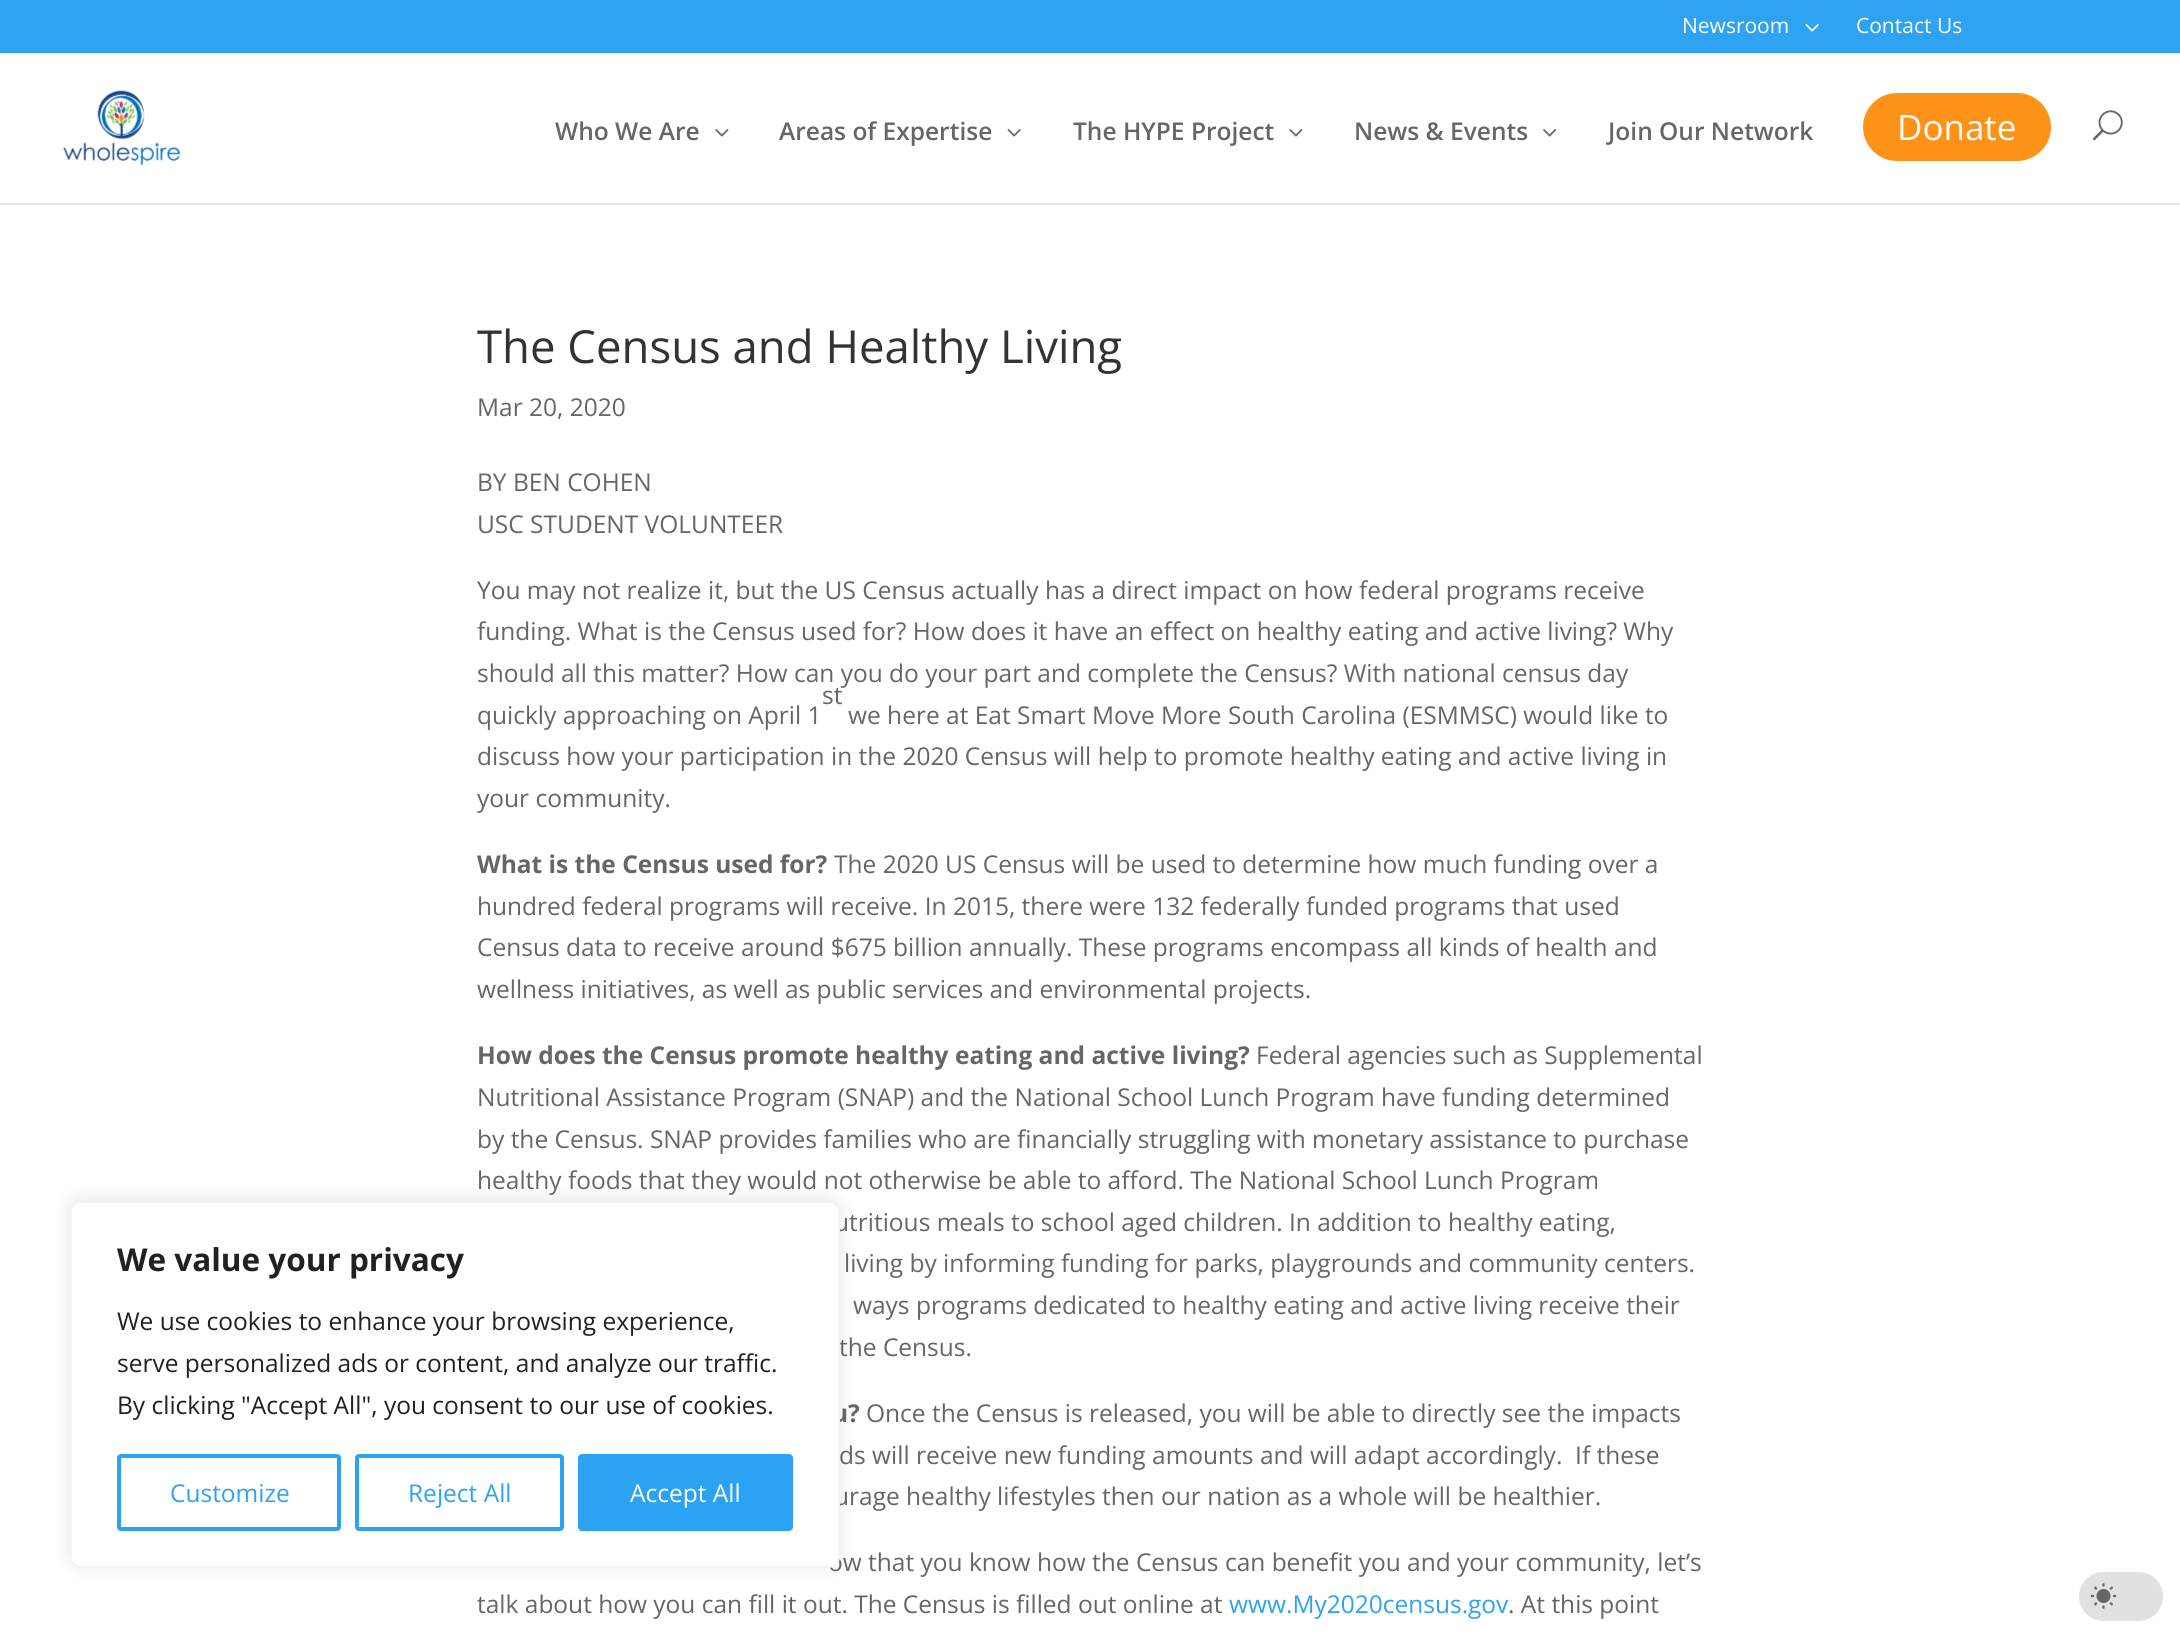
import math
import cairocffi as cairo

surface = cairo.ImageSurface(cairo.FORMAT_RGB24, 2180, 1637)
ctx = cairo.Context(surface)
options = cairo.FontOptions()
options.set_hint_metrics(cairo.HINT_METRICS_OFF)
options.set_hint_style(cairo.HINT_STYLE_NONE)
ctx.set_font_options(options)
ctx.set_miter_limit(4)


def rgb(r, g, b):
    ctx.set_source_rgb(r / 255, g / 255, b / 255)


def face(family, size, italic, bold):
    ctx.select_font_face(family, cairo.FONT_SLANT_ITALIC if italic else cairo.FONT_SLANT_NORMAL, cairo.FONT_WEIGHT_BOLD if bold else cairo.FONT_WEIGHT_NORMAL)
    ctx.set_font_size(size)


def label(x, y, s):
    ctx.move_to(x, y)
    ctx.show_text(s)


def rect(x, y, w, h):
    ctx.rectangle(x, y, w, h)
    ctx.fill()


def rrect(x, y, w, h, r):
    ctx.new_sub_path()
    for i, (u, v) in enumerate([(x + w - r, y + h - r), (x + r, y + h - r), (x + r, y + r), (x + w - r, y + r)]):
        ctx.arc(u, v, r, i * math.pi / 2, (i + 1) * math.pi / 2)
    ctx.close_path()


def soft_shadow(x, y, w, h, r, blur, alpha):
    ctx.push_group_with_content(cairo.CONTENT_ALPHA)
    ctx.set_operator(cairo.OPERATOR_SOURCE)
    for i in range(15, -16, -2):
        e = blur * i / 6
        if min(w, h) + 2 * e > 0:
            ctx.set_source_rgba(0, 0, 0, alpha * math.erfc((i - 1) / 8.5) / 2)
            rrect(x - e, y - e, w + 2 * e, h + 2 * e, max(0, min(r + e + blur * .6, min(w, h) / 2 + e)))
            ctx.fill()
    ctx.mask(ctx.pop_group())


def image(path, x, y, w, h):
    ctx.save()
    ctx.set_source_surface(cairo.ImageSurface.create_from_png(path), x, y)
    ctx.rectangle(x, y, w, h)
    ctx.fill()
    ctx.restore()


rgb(255, 255, 255)
ctx.paint()
rgb(172, 171, 171)
soft_shadow(70, 1199, 770, 367, 11, 9, 0.3)
face('Open Sans', 24.5, 0, 0)
rgb(102, 102, 102)
label(834, 1231, 'utritious meals to school aged children. In addition to healthy eating,')
label(839, 1356, 'the Census.')
face('Open Sans', 24.5, 0, 1)
label(832, 1422, 'u?')
face('Open Sans', 24.5, 0, 0)
label(839, 1464, 'ds will receive new funding amounts and will adapt accordingly.  If these')
label(834, 1505, 'urage healthy lifestyles then our nation as a whole will be healthier.')
label(828, 1571, 'ow that you know how the Census can benefit you and your community, let’s')
rgb(255, 255, 255)
rrect(71, 1202, 768, 365, 10)
ctx.fill_preserve()
rgb(244, 244, 244)
ctx.stroke()
face('Open Sans', 31.5, 0, 1)
rgb(33, 33, 33)
label(117, 1271, 'We value your privacy')
face('Open Sans', 24.5, 0, 0)
label(117, 1330, 'We use cookies to enhance your browsing experience,')
label(117, 1372, 'serve personalized ads or content, and analyze our traffic.')
label(117, 1414, 'By clicking "Accept All", you consent to our use of cookies.')
rrect(119, 1456, 220, 73, 2)
rgb(44, 163, 242)
ctx.set_line_width(4)
ctx.stroke()
rgb(46, 163, 242)
label(170, 1502, 'Customize')
rrect(357, 1456, 205, 73, 2)
rgb(44, 163, 242)
ctx.stroke()
rgb(46, 163, 242)
label(408, 1502, 'Reject All')
rgb(44, 163, 242)
rrect(580, 1456, 211, 73, 2)
ctx.fill_preserve()
ctx.stroke()
rgb(255, 255, 255)
label(630, 1502, 'Accept All')
rgb(46, 163, 242)
rect(0, 0, 2180, 53)
face('Open Sans', 21, 0, 0)
rgb(255, 255, 255)
label(1682, 33, 'Newsroom')
image('image0.png', 1805, 24, 14, 8)
label(1856, 33, 'Contact Us')
rgb(230, 230, 230)
ctx.new_path()
ctx.move_to(0, 203)
ctx.line_to(0, 205)
ctx.line_to(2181, 205)
ctx.line_to(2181, 54)
ctx.line_to(2180, 54)
ctx.line_to(2180, 203)
ctx.close_path()
ctx.fill()
image('image1.png', 62, 90, 119, 75)
face('Open Sans SemiBold', 24.5, 0, 0)
rgb(102, 102, 102)
label(555, 140, 'Who We Are')
image('image2.png', 715, 129, 14, 8)
label(779, 140, 'Areas of Expertise')
image('image3.png', 1007, 129, 14, 8)
label(1073, 140, 'The HYPE Project')
image('image2.png', 1289, 129, 14, 8)
label(1354, 140, 'News & Events')
image('image4.png', 1543, 129, 14, 8)
label(1608, 140, 'Join Our Network')
rgb(255, 146, 25)
rrect(1861, 91, 192, 72, 36)
ctx.fill_preserve()
rgb(255, 255, 255)
ctx.stroke()
face('Open Sans', 35, 0, 0)
label(1897, 140, 'Donate')
image('image5.png', 2092, 110, 31, 31)
face('Open Sans', 45.5, 0, 0)
rgb(51, 51, 51)
label(477, 363, 'The Census and Healthy Living')
face('Open Sans', 24.5, 0, 0)
rgb(102, 102, 102)
label(477, 416, 'Mar 20, 2020')
label(477, 491, 'BY BEN COHEN')
label(477, 533, 'USC STUDENT VOLUNTEER')
label(477, 599, 'You may not realize it, but the US Census actually has a direct impact on how federal programs receive')
label(477, 640, 'funding. What is the Census used for? How does it have an effect on healthy eating and active living? Why')
label(477, 682, 'should all this matter? How can you do your part and complete the Census? With national census day')
label(822, 704, 'st')
label(477, 724, 'quickly approaching on April 1')
label(848, 724, 'we here at Eat Smart Move More South Carolina (ESMMSC) would like to')
label(477, 765, 'discuss how your participation in the 2020 Census will help to promote healthy eating and active living in')
label(477, 807, 'your community.')
face('Open Sans', 24.5, 0, 1)
label(477, 873, 'What is the Census used for?')
face('Open Sans', 24.5, 0, 0)
label(834, 873, 'The 2020 US Census will be used to determine how much funding over a')
label(477, 915, 'hundred federal programs will receive. In 2015, there were 132 federally funded programs that used')
label(477, 956, 'Census data to receive around $675 billion annually. These programs encompass all kinds of health and')
label(477, 998, 'wellness initiatives, as well as public services and environmental projects.')
face('Open Sans', 24.5, 0, 1)
label(477, 1064, 'How does the Census promote healthy eating and active living?')
face('Open Sans', 24.5, 0, 0)
label(1256, 1064, 'Federal agencies such as Supplemental')
label(477, 1106, 'Nutritional Assistance Program (SNAP) and the National School Lunch Program have funding determined')
label(477, 1148, 'by the Census. SNAP provides families who are financially struggling with monetary assistance to purchase')
label(477, 1189, 'healthy foods that they would not otherwise be able to afford. The National School Lunch Program')
label(844, 1272, 'living by informing funding for parks, playgrounds and community centers.')
label(853, 1314, 'ways programs dedicated to healthy eating and active living receive their')
label(866, 1422, 'Once the Census is released, you will be able to directly see the impacts')
label(477, 1613, 'talk about how you can fill it out. The Census is filled out online at')
rgb(46, 163, 242)
label(1229, 1613, 'www.My2020census.gov')
rgb(102, 102, 102)
label(1508, 1613, '. At this point')
rgb(225, 225, 225)
rrect(2079, 1572, 84, 49, 24.5)
ctx.fill()
image('image6.png', 2090, 1583, 27, 26)
surface.write_to_png('render.png')
